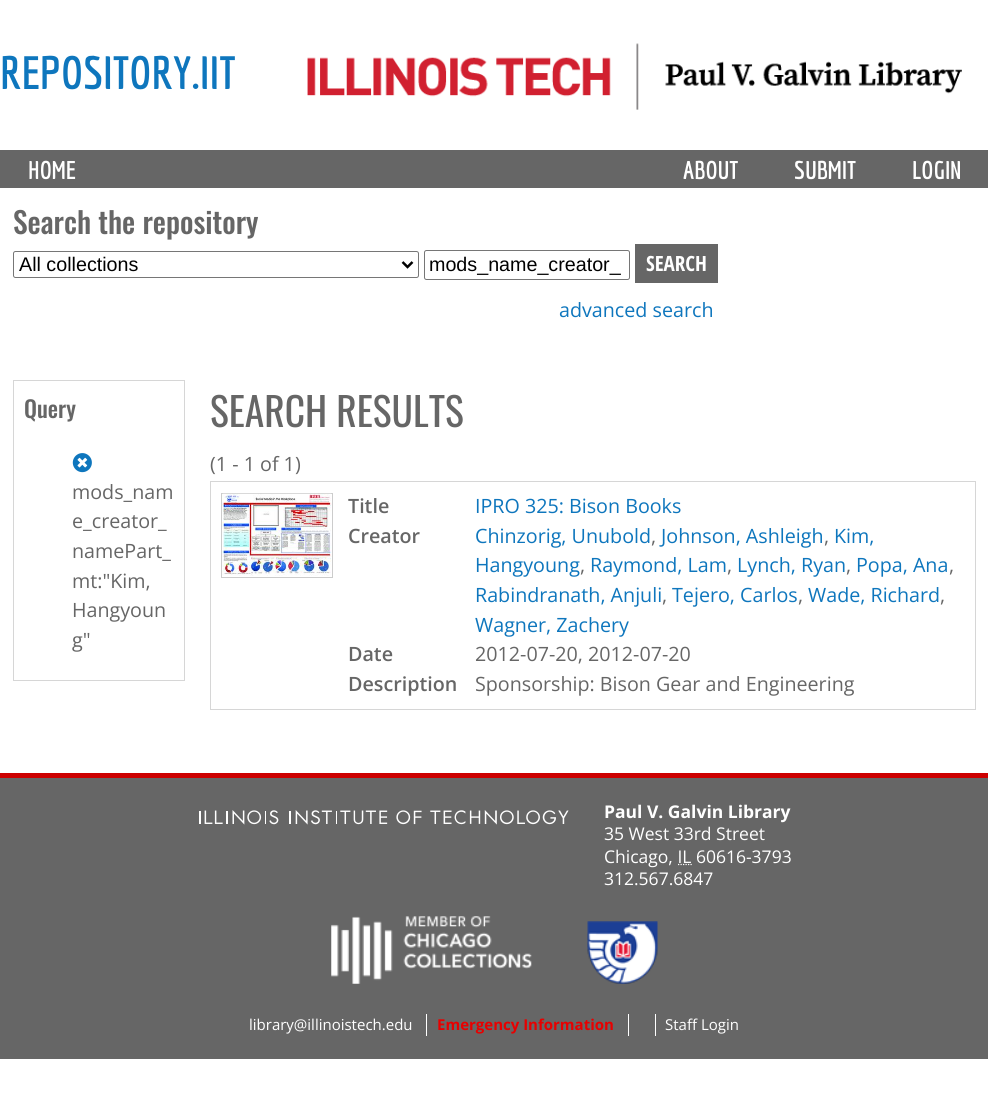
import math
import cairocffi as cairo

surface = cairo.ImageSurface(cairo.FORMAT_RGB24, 988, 1119)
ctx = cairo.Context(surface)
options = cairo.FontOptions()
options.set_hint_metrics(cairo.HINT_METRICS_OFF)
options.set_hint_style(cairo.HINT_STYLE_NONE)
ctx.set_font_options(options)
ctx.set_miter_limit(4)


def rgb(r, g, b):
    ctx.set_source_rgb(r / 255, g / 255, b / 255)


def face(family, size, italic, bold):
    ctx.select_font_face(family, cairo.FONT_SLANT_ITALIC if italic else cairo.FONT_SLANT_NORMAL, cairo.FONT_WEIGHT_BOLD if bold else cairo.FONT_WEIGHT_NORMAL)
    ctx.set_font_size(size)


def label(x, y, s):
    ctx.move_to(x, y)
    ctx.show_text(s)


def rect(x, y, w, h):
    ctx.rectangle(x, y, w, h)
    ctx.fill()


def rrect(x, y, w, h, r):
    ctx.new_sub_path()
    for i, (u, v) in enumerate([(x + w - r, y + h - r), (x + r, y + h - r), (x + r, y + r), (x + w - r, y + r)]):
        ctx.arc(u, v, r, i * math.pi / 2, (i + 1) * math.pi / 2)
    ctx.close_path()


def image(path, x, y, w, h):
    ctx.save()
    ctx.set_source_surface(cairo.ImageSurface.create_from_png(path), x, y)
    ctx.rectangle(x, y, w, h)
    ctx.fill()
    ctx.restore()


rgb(255, 255, 255)
ctx.paint()
face('Economica', 45.5, 0, 1)
rgb(14, 118, 189)
label(0, 89, 'REPOSITORY.IIT')
image('image0.png', 307, 43, 655, 67)
rgb(102, 102, 102)
rect(0, 150, 988, 38)
face('Economica', 25, 0, 1)
rgb(255, 255, 255)
label(28, 179, 'HOME')
label(683, 179, 'ABOUT')
label(794, 179, 'SUBMIT')
label(912, 179, 'LOGIN')
face('Oswald Medium', 29.5, 0, 0)
rgb(102, 102, 102)
label(13, 234, 'Search the repository')
rrect(13.5, 251.5, 405, 26, 2)
rgb(118, 118, 118)
ctx.set_line_width(1)
ctx.stroke()
ctx.new_path()
ctx.move_to(402.5, 262)
ctx.line_to(407.5, 267)
ctx.line_to(412.5, 262)
rgb(0, 0, 0)
ctx.set_line_width(2.5)
ctx.stroke()
face('Liberation Sans', 19.7, 0, 0)
label(19, 271, 'All collections')
rrect(424.5, 250.5, 205, 29, 2)
rgb(118, 118, 118)
ctx.set_line_width(1)
ctx.stroke()
rgb(0, 0, 0)
label(429, 271, 'mods_name_creator_')
rgb(102, 102, 102)
rect(635, 244, 83, 39)
face('Open Sans Condensed', 21, 0, 1)
rgb(255, 255, 255)
label(646, 271, 'SEARCH')
face('Open Sans', 19.7, 0, 0)
rgb(14, 118, 189)
label(559, 317, 'advanced search')
ctx.rectangle(13.5, 380.5, 171, 300)
rgb(214, 214, 214)
ctx.stroke()
face('Oswald Medium', 23, 0, 0)
rgb(102, 102, 102)
label(24, 418, 'Query')
image('image1.png', 72, 453, 20, 20)
face('Open Sans', 19.7, 0, 0)
label(72, 499, 'mods_nam')
label(72, 528, 'e_creator_')
label(72, 558, 'namePart_')
label(72, 588, 'mt:"Kim,')
label(72, 617, 'Hangyoun')
label(72, 647, 'g"')
face('Oswald', 39.5, 0, 0)
label(210, 427, 'SEARCH RESULTS')
face('Open Sans', 19.7, 0, 0)
label(210, 471, '(1 - 1 of 1)')
ctx.rectangle(210.5, 481.5, 765, 228)
rgb(214, 214, 214)
ctx.stroke()
ctx.rectangle(221.5, 493.5, 111, 84)
rgb(204, 204, 204)
ctx.stroke()
image('image2.png', 222, 493, 110, 83)
face('Open Sans SemiBold', 19.7, 0, 0)
rgb(102, 102, 102)
label(348, 513, 'Title')
face('Open Sans', 19.7, 0, 0)
rgb(14, 118, 189)
label(475, 513, 'IPRO 325: Bison Books')
face('Open Sans SemiBold', 19.7, 0, 0)
rgb(102, 102, 102)
label(348, 543, 'Creator')
face('Open Sans', 19.7, 0, 0)
rgb(14, 118, 189)
label(475, 543, 'Chinzorig, Unubold')
rgb(102, 102, 102)
label(651, 543, ',')
rgb(14, 118, 189)
label(661, 543, 'Johnson, Ashleigh')
rgb(102, 102, 102)
label(824, 543, ',')
rgb(14, 118, 189)
label(834, 543, 'Kim,')
label(475, 572, 'Hangyoung')
rgb(102, 102, 102)
label(580, 572, ',')
rgb(14, 118, 189)
label(590, 572, 'Raymond, Lam')
rgb(102, 102, 102)
label(727, 572, ',')
rgb(14, 118, 189)
label(737, 572, 'Lynch, Ryan')
rgb(102, 102, 102)
label(846, 572, ',')
rgb(14, 118, 189)
label(856, 572, 'Popa, Ana')
rgb(102, 102, 102)
label(949, 572, ',')
rgb(14, 118, 189)
label(475, 602, 'Rabindranath, Anjuli')
rgb(102, 102, 102)
label(662, 602, ',')
rgb(14, 118, 189)
label(672, 602, 'Tejero, Carlos')
rgb(102, 102, 102)
label(798, 602, ',')
rgb(14, 118, 189)
label(808, 602, 'Wade, Richard')
rgb(102, 102, 102)
label(940, 602, ',')
rgb(14, 118, 189)
label(475, 632, 'Wagner, Zachery')
face('Open Sans SemiBold', 19.7, 0, 0)
rgb(102, 102, 102)
label(348, 661, 'Date')
face('Open Sans', 19.7, 0, 0)
label(475, 661, '2012-07-20, 2012-07-20')
face('Open Sans SemiBold', 19.7, 0, 0)
label(348, 691, 'Description')
face('Open Sans', 19.7, 0, 0)
label(475, 691, 'Sponsorship: Bison Gear and Engineering')
rect(0, 778, 988, 281)
rgb(204, 0, 0)
rect(0, 773, 988, 5)
image('image3.png', 199, 810, 370, 15)
face('Open Sans', 17.5, 0, 1)
rgb(255, 255, 255)
label(604, 818, 'Paul V. Galvin Library')
face('Open Sans', 17.5, 0, 0)
label(604, 840, '35 West 33rd Street')
label(604, 863, 'Chicago, IL 60616-3793')
ctx.new_path()
ctx.move_to(678, 864.5)
ctx.line_to(692, 864.5)
ctx.set_line_width(1.2)
ctx.set_dash([1.25, 1.25])
ctx.stroke()
label(604, 885, '312.567.6847')
image('image4.png', 331, 916, 201, 68)
image('image5.png', 587, 921, 71, 63)
face('Open Sans', 15, 0, 0)
label(249, 1030, 'library@illinoistech.edu')
rect(426, 1014, 1, 22)
face('Open Sans', 15, 0, 1)
rgb(232, 0, 0)
label(437, 1030, 'Emergency Information')
rgb(255, 255, 255)
rect(628, 1014, 1, 22)
rect(655, 1014, 1, 22)
face('Open Sans', 15, 0, 0)
label(665, 1030, 'Staff Login')
surface.write_to_png('render.png')
